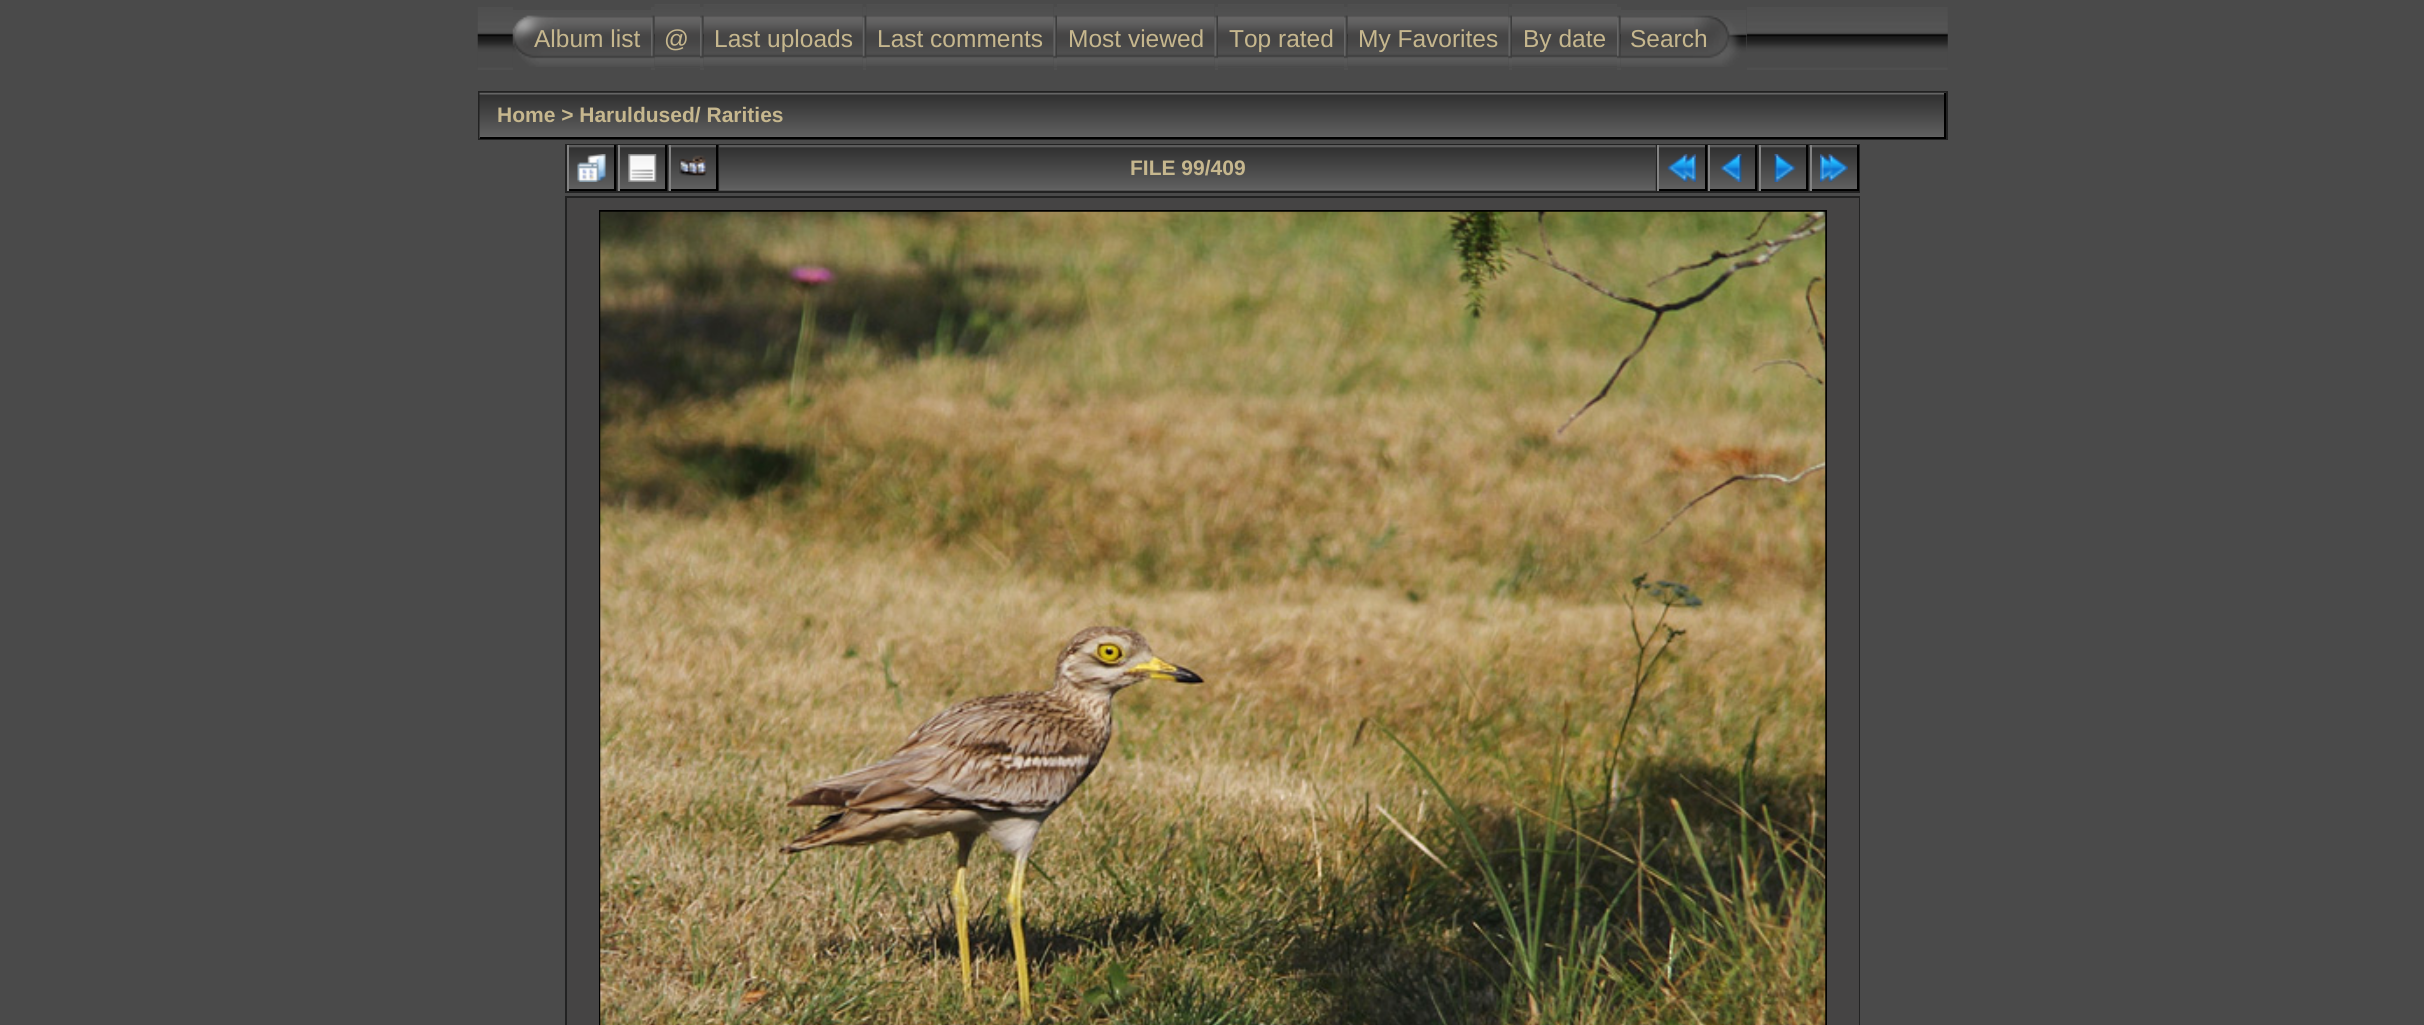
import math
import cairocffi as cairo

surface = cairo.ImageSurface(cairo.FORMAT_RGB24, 2424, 1025)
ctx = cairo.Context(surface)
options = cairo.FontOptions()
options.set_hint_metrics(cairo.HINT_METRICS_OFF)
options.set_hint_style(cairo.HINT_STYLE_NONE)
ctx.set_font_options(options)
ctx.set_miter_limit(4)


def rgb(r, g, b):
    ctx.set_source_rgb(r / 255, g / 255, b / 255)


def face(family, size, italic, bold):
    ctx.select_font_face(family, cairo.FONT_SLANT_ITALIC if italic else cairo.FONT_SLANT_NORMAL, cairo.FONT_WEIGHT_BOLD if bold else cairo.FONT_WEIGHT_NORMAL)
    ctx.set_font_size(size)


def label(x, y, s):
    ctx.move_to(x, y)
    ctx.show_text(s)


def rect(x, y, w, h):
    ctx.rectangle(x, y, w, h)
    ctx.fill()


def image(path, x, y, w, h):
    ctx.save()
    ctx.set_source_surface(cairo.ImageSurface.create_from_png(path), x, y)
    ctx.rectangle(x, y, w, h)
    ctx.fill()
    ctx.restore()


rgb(74, 74, 74)
ctx.paint()
image('image0.png', 477, 7, 1471, 63)
rgb(74, 74, 74)
rect(513, 7, 138, 63)
image('image1.png', 512, 10, 139, 57)
face('Liberation Sans', 24.5, 0, 0)
rgb(198, 183, 142)
label(534, 47, 'Album list')
image('image3.png', 654, 4, 46, 62)
image('image2.png', 651, 15, 4, 52)
rgb(74, 74, 74)
rect(655, 68, 45, 2)
rgb(198, 183, 142)
label(664, 47, '@')
rgb(74, 74, 74)
rect(704, 7, 159, 63)
image('image4.png', 703, 4, 160, 62)
image('image2.png', 700, 15, 4, 52)
rgb(198, 183, 142)
label(714, 47, 'Last uploads')
rgb(74, 74, 74)
rect(866, 7, 188, 63)
image('image6.png', 866, 4, 188, 62)
image('image5.png', 862, 15, 5, 52)
rgb(198, 183, 142)
label(877, 47, 'Last comments')
image('image7.png', 1053, 15, 4, 52)
rgb(74, 74, 74)
rect(1057, 7, 158, 63)
image('image8.png', 1057, 4, 158, 62)
rgb(198, 183, 142)
label(1068, 47, 'Most viewed')
image('image7.png', 1214, 15, 4, 52)
rgb(74, 74, 74)
rect(1218, 68, 126, 2)
image('image9.png', 1218, 4, 126, 62)
rgb(198, 183, 142)
label(1229, 47, 'Top rated')
rgb(74, 74, 74)
rect(1348, 7, 161, 63)
image('image10.png', 1347, 4, 162, 62)
image('image2.png', 1344, 15, 4, 52)
rgb(198, 183, 142)
label(1358, 47, 'My Favorites')
image('image7.png', 1508, 15, 4, 52)
rgb(74, 74, 74)
rect(1512, 68, 105, 2)
image('image11.png', 1512, 4, 105, 62)
rgb(198, 183, 142)
label(1523, 47, 'By date')
rgb(74, 74, 74)
rect(1621, 7, 126, 63)
image('image13.png', 1620, 10, 127, 57)
image('image12.png', 1617, 15, 4, 52)
rgb(198, 183, 142)
label(1630, 47, 'Search')
rgb(34, 34, 34)
rect(478, 91, 1470, 49)
image('image14.png', 479, 92, 1467, 47)
rgb(0, 0, 0)
rect(1944, 93, 2, 45)
rect(480, 137, 1466, 2)
face('Liberation Sans', 21, 0, 1)
rgb(198, 183, 142)
label(497, 122, 'Home > Haruldused/ Rarities')
rgb(34, 34, 34)
rect(565, 144, 1295, 49)
image('image15.png', 569, 145, 45, 1)
image('image16.png', 569, 145, 45, 44)
rgb(0, 0, 0)
rect(614, 145, 2, 46)
rect(567, 189, 49, 2)
rgb(131, 131, 131)
rect(567, 145, 2, 46)
image('image17.png', 577, 154, 29, 28)
image('image18.png', 617, 145, 48, 46)
image('image19.png', 617, 145, 48, 46)
rgb(0, 0, 0)
rect(665, 145, 2, 46)
rect(618, 189, 49, 2)
rgb(131, 131, 131)
rect(618, 145, 2, 46)
image('image20.png', 628, 154, 29, 28)
image('image21.png', 668, 145, 48, 46)
image('image22.png', 668, 145, 48, 46)
rgb(0, 0, 0)
rect(716, 145, 2, 46)
rect(669, 189, 49, 2)
rgb(131, 131, 131)
rect(669, 145, 2, 46)
image('image23.png', 679, 155, 28, 21)
rgb(63, 63, 63)
rect(719, 145, 937, 46)
image('image24.png', 719, 145, 937, 46)
rgb(198, 183, 142)
label(1130, 175, 'FILE 99/409')
image('image25.png', 1659, 145, 46, 1)
image('image26.png', 1659, 145, 46, 44)
rgb(0, 0, 0)
rect(1705, 145, 2, 46)
rect(1657, 189, 49, 2)
rgb(131, 131, 131)
rect(1657, 145, 2, 46)
image('image27.png', 1667, 154, 29, 28)
image('image15.png', 1710, 145, 45, 1)
image('image16.png', 1710, 145, 45, 44)
rgb(0, 0, 0)
rect(1755, 145, 2, 46)
rect(1708, 189, 49, 2)
rgb(131, 131, 131)
rect(1708, 145, 2, 46)
image('image28.png', 1720, 154, 22, 28)
image('image18.png', 1758, 145, 48, 46)
image('image19.png', 1758, 145, 48, 46)
rgb(0, 0, 0)
rect(1806, 145, 2, 46)
rect(1759, 189, 49, 2)
rgb(131, 131, 131)
rect(1759, 145, 2, 46)
image('image29.png', 1774, 154, 22, 28)
image('image21.png', 1809, 145, 48, 46)
image('image22.png', 1809, 145, 48, 46)
rgb(0, 0, 0)
rect(1857, 145, 2, 46)
rect(1810, 189, 49, 2)
rgb(131, 131, 131)
rect(1810, 145, 2, 46)
image('image30.png', 1820, 154, 28, 28)
rgb(34, 34, 34)
rect(565, 196, 1295, 829)
rgb(69, 68, 68)
rect(567, 198, 1292, 827)
ctx.rectangle(600, 211, 1226, 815)
rgb(0, 0, 0)
ctx.stroke()
image('image31.png', 600, 211, 1226, 814)
surface.write_to_png('render.png')
